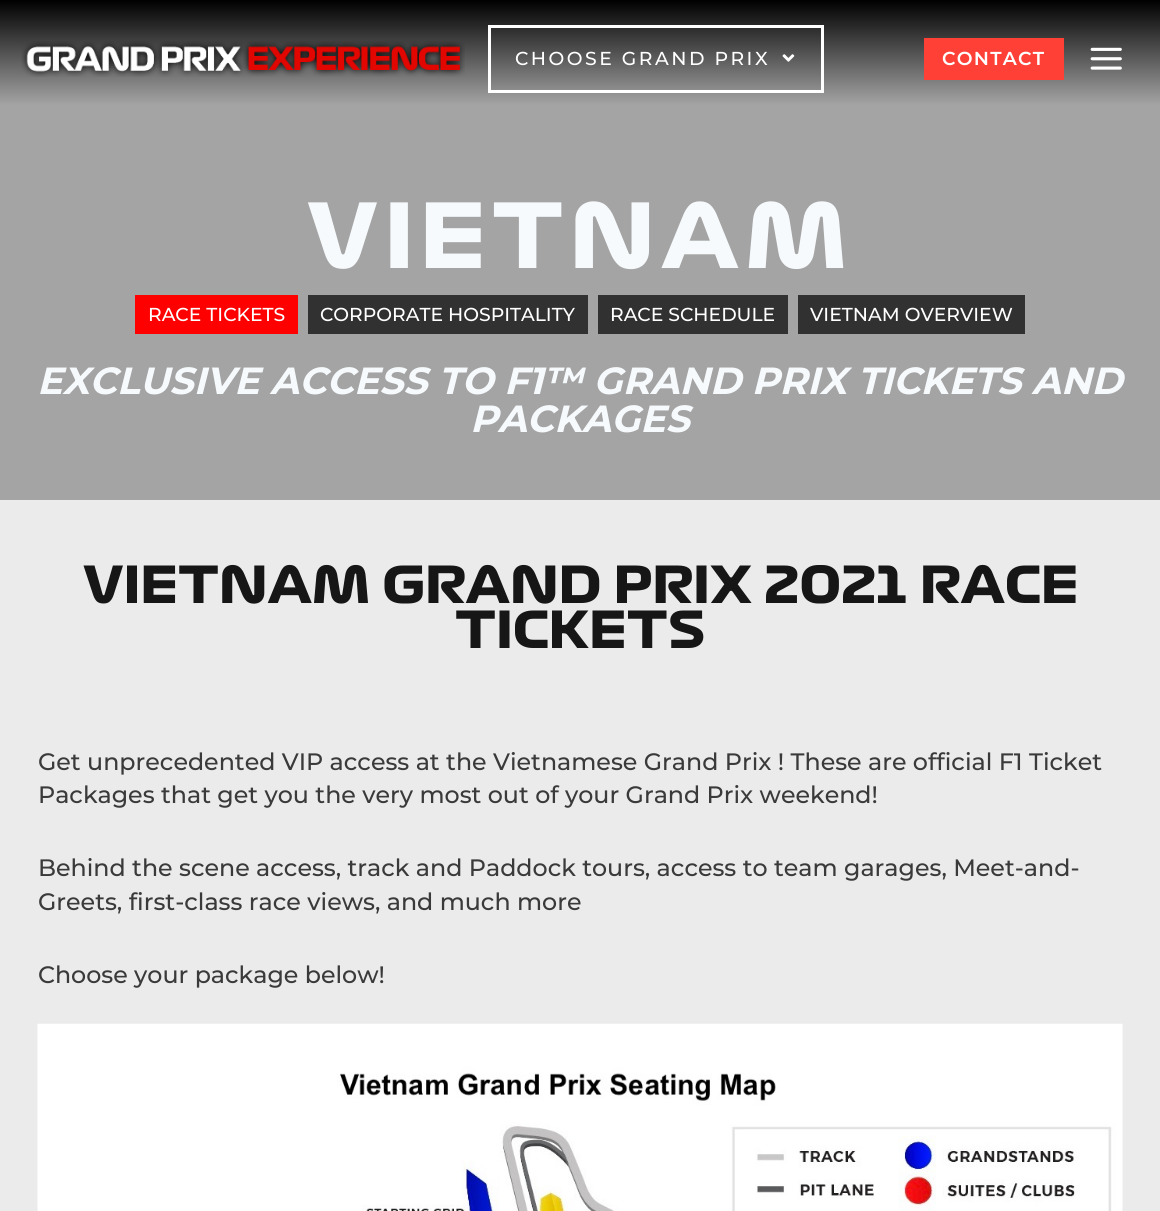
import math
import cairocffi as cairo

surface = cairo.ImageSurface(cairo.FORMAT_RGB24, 1160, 1211)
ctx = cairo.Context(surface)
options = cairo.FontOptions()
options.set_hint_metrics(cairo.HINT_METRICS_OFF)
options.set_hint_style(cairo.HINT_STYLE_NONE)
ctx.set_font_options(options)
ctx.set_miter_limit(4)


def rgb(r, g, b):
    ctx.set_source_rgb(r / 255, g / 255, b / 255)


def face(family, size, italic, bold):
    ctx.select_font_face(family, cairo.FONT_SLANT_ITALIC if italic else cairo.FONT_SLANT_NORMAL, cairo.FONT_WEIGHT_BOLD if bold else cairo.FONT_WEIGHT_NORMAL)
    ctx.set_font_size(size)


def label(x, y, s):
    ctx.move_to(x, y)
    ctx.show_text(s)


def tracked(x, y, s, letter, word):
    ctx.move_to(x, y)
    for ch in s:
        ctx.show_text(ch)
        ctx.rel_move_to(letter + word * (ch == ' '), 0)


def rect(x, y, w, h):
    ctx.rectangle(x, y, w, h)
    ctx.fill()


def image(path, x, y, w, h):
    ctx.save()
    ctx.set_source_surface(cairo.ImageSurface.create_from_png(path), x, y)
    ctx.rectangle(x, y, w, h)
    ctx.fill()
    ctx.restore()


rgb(235, 235, 235)
ctx.paint()
gradient = cairo.LinearGradient(580, 0, 580, 105)
gradient.add_color_stop_rgba(0, 0, 0, 0, 1)
gradient.add_color_stop_rgba(1, 0.643, 0.643, 0.643, 1)
ctx.set_source(gradient)
rect(0, 0, 1160, 105)
image('image0.png', 21, 41, 444, 36)
ctx.rectangle(489.5, 26.5, 333, 65)
rgb(255, 255, 255)
ctx.set_line_width(3)
ctx.stroke()
face('Montserrat Medium', 18.75, 0, 0)
tracked(515, 65, 'CHOOSE GRAND PRIX', 2.5, 0)
image('image1.png', 782, 54, 13, 8)
rgb(255, 64, 55)
rect(924, 38, 140, 42)
face('Montserrat SemiBold', 18.75, 0, 0)
rgb(255, 255, 255)
tracked(942, 65, 'CONTACT', 1.25, 0)
image('image2.png', 1090, 47, 32, 23)
rgb(164, 164, 164)
rect(0, 105, 1160, 395)
face('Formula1', 87.5, 0, 1)
rgb(247, 250, 252)
tracked(307, 268, 'VIETNAM', 6.25, 0)
rgb(255, 0, 0)
rect(135, 295, 163, 39)
face('Montserrat Medium', 18.75, 0, 0)
rgb(255, 255, 255)
label(148, 321, 'RACE TICKETS')
rgb(49, 49, 49)
rect(308, 295, 280, 39)
rgb(255, 255, 255)
label(320, 321, 'CORPORATE HOSPITALITY')
rgb(49, 49, 49)
rect(598, 295, 190, 39)
rgb(255, 255, 255)
label(610, 321, 'RACE SCHEDULE')
rgb(49, 49, 49)
rect(798, 295, 227, 39)
rgb(255, 255, 255)
label(810, 321, 'VIETNAM OVERVIEW')
face('Montserrat', 37.8, 1, 1)
rgb(247, 250, 252)
label(37, 394, 'EXCLUSIVE ACCESS TO F1™ GRAND PRIX TICKETS AND')
label(470, 432, 'PACKAGES')
face('Formula1', 50, 0, 1)
rgb(22, 22, 22)
tracked(83, 603, 'VIETNAM GRAND PRIX 2021 RACE', 0, 0.5)
label(455, 648, 'TICKETS')
face('Montserrat Medium', 23.75, 0, 0)
rgb(58, 58, 58)
label(38, 770, 'Get unprecedented VIP access at the Vietnamese Grand Prix ! These are official F1 Ticket')
label(38, 803, 'Packages that get you the very most out of your Grand Prix weekend!')
label(38, 876, 'Behind the scene access, track and Paddock tours, access to team garages, Meet-and-')
label(38, 910, 'Greets, first-class race views, and much more')
label(38, 983, 'Choose your package below!')
image('image3.png', 37, 1023, 1086, 188)
surface.write_to_png('render.png')
